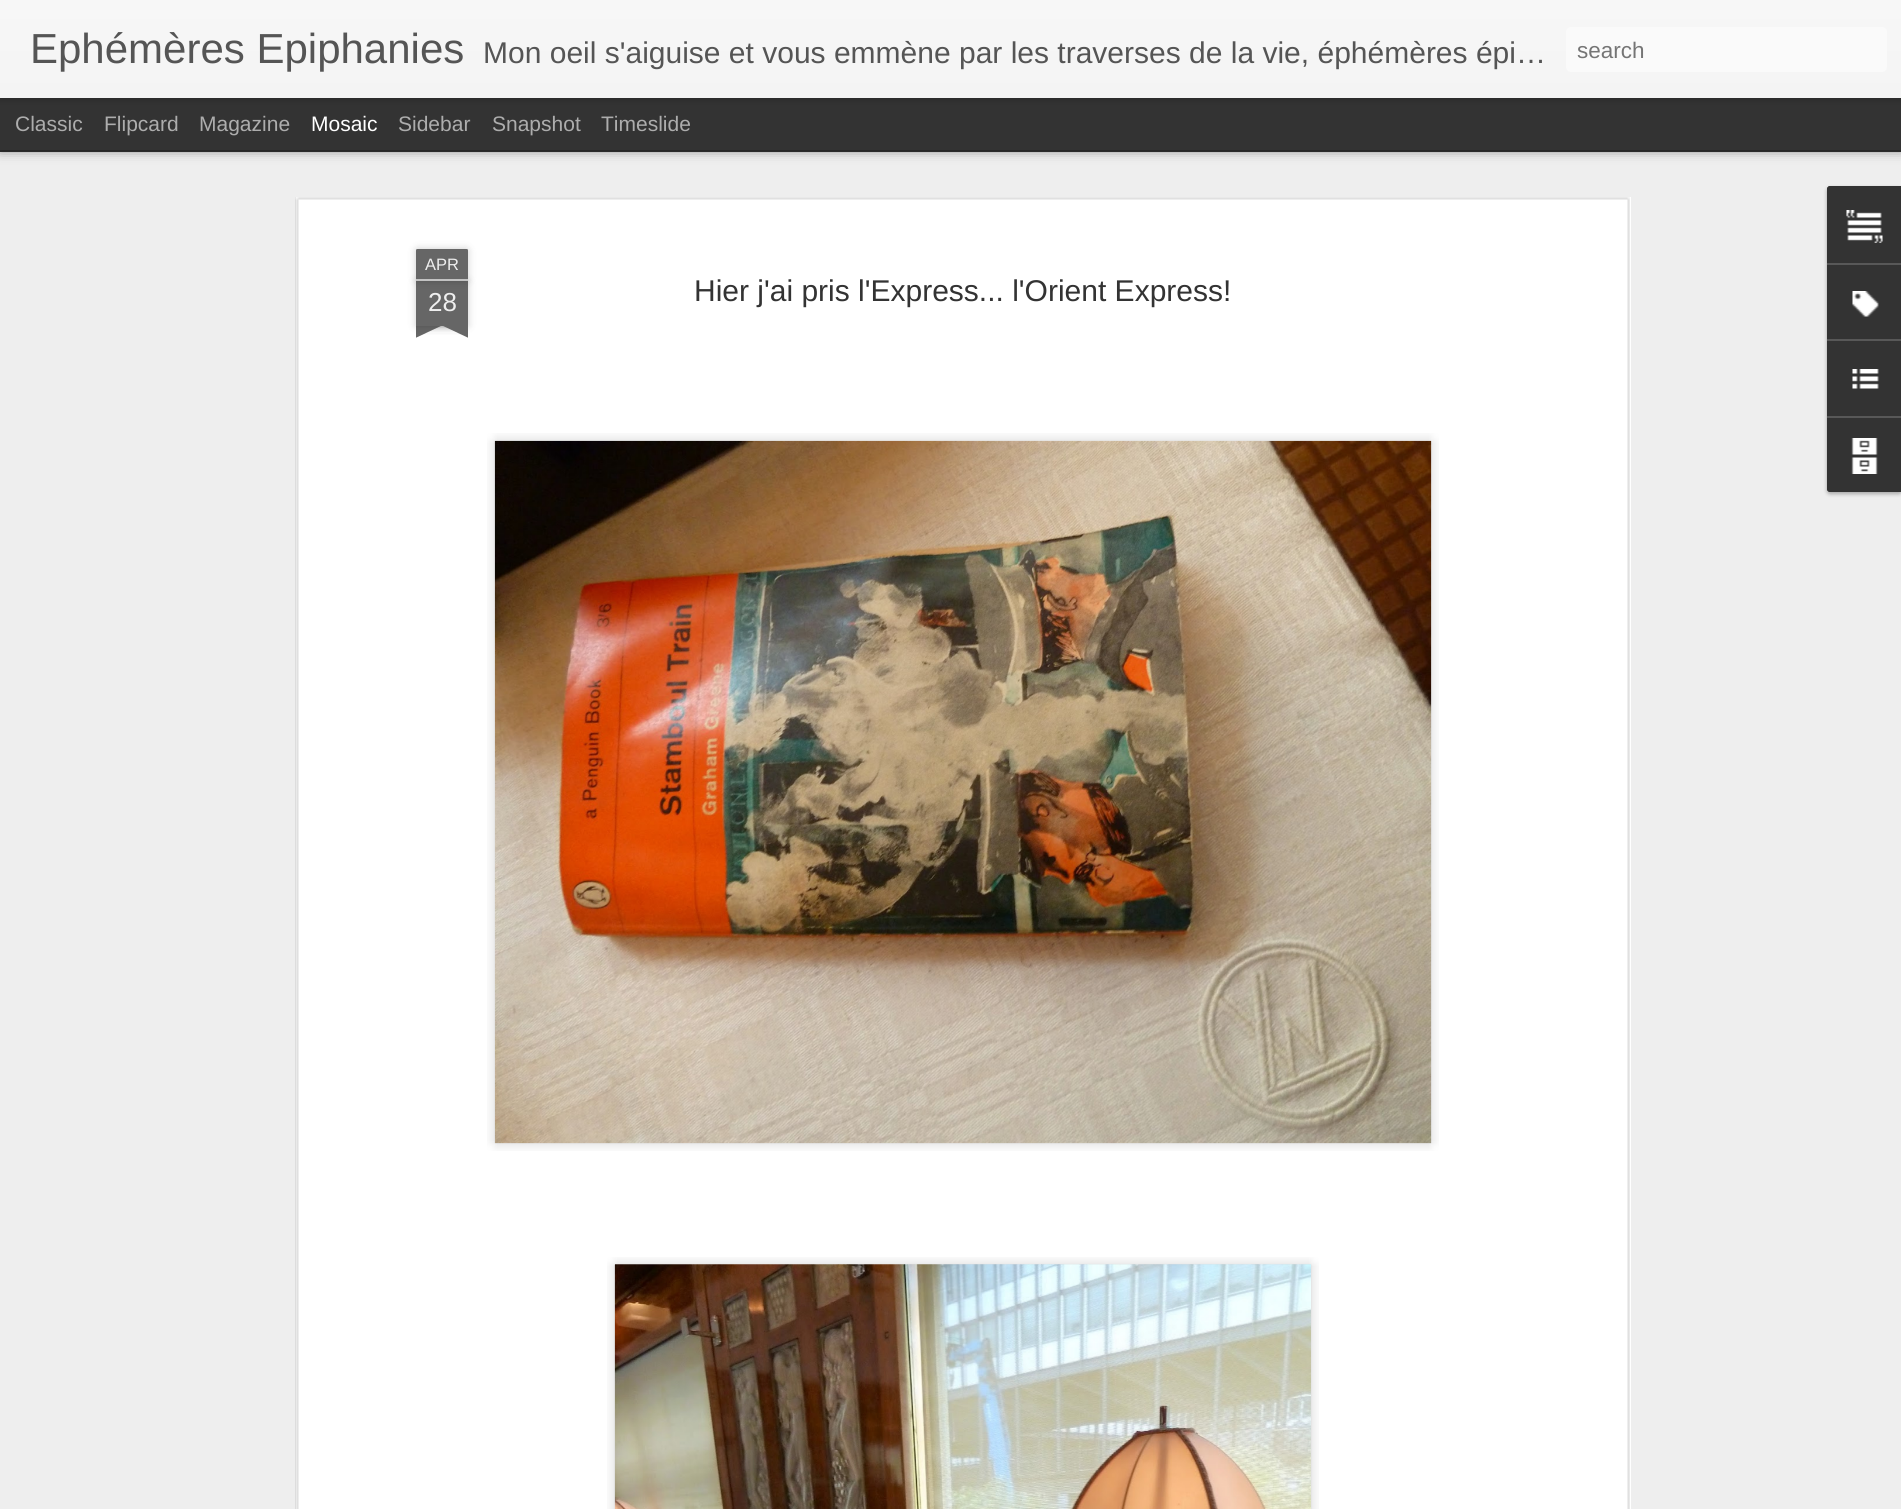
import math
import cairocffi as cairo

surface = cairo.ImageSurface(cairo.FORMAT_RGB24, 1901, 1509)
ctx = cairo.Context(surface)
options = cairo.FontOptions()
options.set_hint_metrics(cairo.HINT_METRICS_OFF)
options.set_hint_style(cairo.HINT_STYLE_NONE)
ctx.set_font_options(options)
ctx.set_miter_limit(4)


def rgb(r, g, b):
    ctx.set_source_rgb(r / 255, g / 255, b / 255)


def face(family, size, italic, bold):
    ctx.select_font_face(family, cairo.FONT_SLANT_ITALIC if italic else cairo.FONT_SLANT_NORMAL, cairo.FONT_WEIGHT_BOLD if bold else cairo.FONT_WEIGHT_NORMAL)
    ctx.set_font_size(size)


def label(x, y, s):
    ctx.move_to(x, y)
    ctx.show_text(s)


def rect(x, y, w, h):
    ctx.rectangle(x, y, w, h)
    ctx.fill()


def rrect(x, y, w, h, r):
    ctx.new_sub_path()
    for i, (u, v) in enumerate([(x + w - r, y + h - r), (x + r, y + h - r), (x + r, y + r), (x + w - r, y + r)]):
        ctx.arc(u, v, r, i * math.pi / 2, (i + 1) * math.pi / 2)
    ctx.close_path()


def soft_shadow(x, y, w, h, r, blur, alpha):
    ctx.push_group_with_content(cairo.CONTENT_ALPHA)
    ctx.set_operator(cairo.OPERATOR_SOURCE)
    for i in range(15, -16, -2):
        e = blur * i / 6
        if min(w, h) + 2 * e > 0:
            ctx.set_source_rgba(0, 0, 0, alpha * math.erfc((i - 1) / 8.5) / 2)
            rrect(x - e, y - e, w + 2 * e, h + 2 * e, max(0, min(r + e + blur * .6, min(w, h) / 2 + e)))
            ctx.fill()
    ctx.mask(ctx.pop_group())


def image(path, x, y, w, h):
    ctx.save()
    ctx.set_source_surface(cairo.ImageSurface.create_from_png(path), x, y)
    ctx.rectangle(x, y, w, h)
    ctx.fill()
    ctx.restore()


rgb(51, 51, 51)
ctx.paint()
rgb(238, 238, 238)
rect(0, 152, 1901, 1357)
rgb(0, 0, 0)
soft_shadow(0, 98, 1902, 52, 0, 6, 0.5)
rgb(51, 51, 51)
rect(0, 98, 1901, 52)
rgb(0, 0, 0)
soft_shadow(0, 0, 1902, 98, 0, 4, 0.3)
gradient = cairo.LinearGradient(0, 0, 0, 98)
gradient.add_color_stop_rgba(0, 0.969, 0.969, 0.969, 1)
gradient.add_color_stop_rgba(1, 0.957, 0.957, 0.957, 1)
ctx.set_source(gradient)
rect(0, 0, 1901, 98)
face('Liberation Sans', 42, 0, 0)
rgb(85, 85, 85)
label(30, 63, 'Ephémères Epiphanies')
face('Liberation Sans', 30, 0, 0)
label(483, 63, 'Mon oeil s\'aiguise et vous emmène par les traverses de la vie, éphémères épi…')
rgb(250, 250, 250)
rrect(1566, 27, 321, 45, 5)
ctx.fill()
face('Liberation Sans', 22.5, 0, 0)
rgb(117, 117, 117)
label(1577, 58, 'search')
face('Liberation Sans', 21, 0, 0)
rgb(173, 173, 173)
label(15, 131, 'Classic')
label(104, 131, 'Flipcard')
label(199, 131, 'Magazine')
rgb(255, 255, 255)
label(311, 131, 'Mosaic')
rgb(173, 173, 173)
label(398, 131, 'Sidebar')
label(492, 131, 'Snapshot')
label(601, 131, 'Timeslide')
rgb(255, 255, 255)
rect(296, 197, 1335, 1312)
image('image0.png', 295, 197, 1335, 1312)
rgb(0, 0, 0)
soft_shadow(416, 281, 52, 45, 0, 4, 0.2)
rgb(102, 102, 102)
rect(416, 281, 52, 45)
rgb(0, 0, 0)
soft_shadow(416, 249, 52, 32, 1.5, 4, 0.2)
rgb(102, 102, 102)
ctx.new_path()
ctx.move_to(417.5, 249)
ctx.line_to(466.5, 249)
ctx.curve_to(467.5, 249, 468, 249.5, 468, 250.5)
ctx.line_to(468, 281)
ctx.line_to(416, 281)
ctx.line_to(416, 250.5)
ctx.curve_to(416, 249.5, 416.5, 249, 417.5, 249)
ctx.close_path()
ctx.fill()
rgb(194, 194, 194)
rect(416, 279, 52, 2)
face('Liberation Sans', 16.5, 0, 0)
rgb(238, 238, 238)
label(425, 270, 'APR')
face('Liberation Sans', 26, 0, 0)
label(428, 311, '28')
ctx.save()
ctx.rectangle(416, 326, 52, 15)
ctx.clip()
rgb(0, 0, 0)
soft_shadow(402, 311, 75, 15, 0, 4, 0.2)
ctx.restore()
ctx.save()
ctx.rectangle(416, 326, 52, 15)
ctx.clip()
rgb(102, 102, 102)
ctx.new_path()
ctx.move_to(402, 327)
ctx.line_to(470, 295)
ctx.line_to(477, 309)
ctx.line_to(409, 341)
ctx.close_path()
ctx.fill()
ctx.restore()
ctx.save()
ctx.rectangle(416, 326, 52, 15)
ctx.clip()
rgb(0, 0, 0)
soft_shadow(407, 311, 75, 15, 0, 4, 0.2)
ctx.restore()
ctx.save()
ctx.rectangle(416, 326, 52, 15)
ctx.clip()
rgb(102, 102, 102)
ctx.new_path()
ctx.move_to(413, 295)
ctx.line_to(481, 327)
ctx.line_to(475, 341)
ctx.line_to(407, 309)
ctx.close_path()
ctx.fill()
ctx.restore()
face('Liberation Sans', 30, 0, 0)
rgb(51, 51, 51)
label(694, 301, 'Hier j\'ai pris l\'Express... l\'Orient Express!')
image('image1.png', 487, 433, 952, 718)
image('image2.png', 494, 440, 938, 704)
image('image3.png', 607, 1257, 712, 252)
image('image4.png', 614, 1264, 697, 245)
rgb(0, 0, 0)
soft_shadow(1827, 188, 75, 306, 3, 2, 0.3)
rgb(51, 51, 51)
ctx.new_path()
ctx.move_to(1830, 186)
ctx.line_to(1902, 186)
ctx.line_to(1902, 492)
ctx.line_to(1830, 492)
ctx.curve_to(1828.5, 492, 1827, 490.5, 1827, 489)
ctx.line_to(1827, 189)
ctx.curve_to(1827, 187.5, 1828.5, 186, 1830, 186)
ctx.close_path()
ctx.fill()
ctx.new_path()
ctx.move_to(1830, 186)
ctx.line_to(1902, 186)
ctx.line_to(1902, 263)
ctx.line_to(1827, 263)
ctx.line_to(1827, 189)
ctx.curve_to(1827, 187.5, 1828.5, 186, 1830, 186)
ctx.close_path()
ctx.fill()
image('image5.png', 1846, 210, 37, 33)
rgb(88, 88, 88)
rect(1827, 263, 74, 2)
image('image6.png', 1852, 291, 27, 26)
rect(1827, 339, 74, 2)
image('image7.png', 1852, 369, 27, 20)
rgb(51, 51, 51)
ctx.new_path()
ctx.move_to(1827, 416)
ctx.line_to(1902, 416)
ctx.line_to(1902, 492)
ctx.line_to(1830, 492)
ctx.curve_to(1828.5, 492, 1827, 490.5, 1827, 489)
ctx.close_path()
ctx.fill()
rgb(88, 88, 88)
rect(1827, 416, 74, 2)
image('image8.png', 1851, 438, 27, 36)
surface.write_to_png('render.png')
